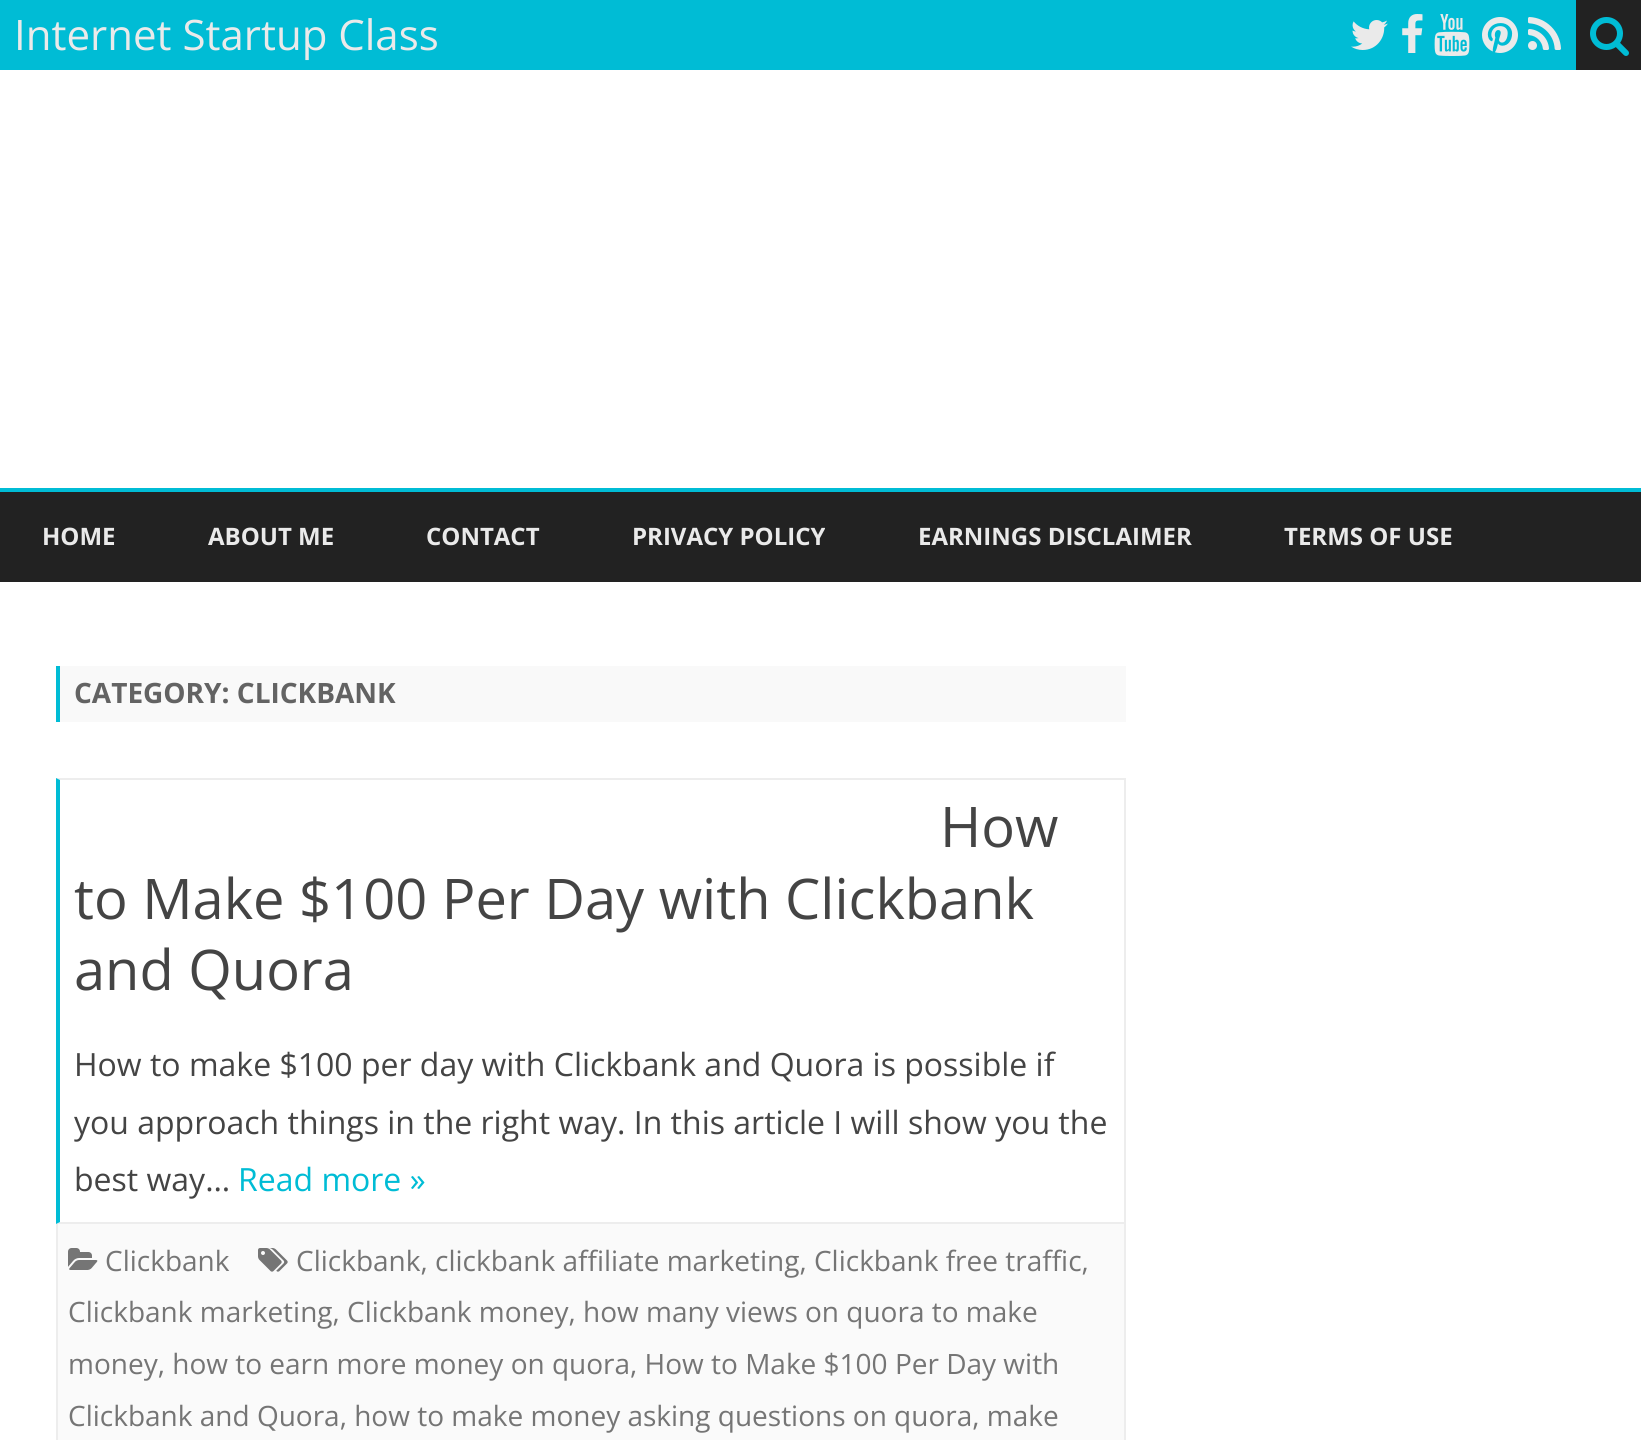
import math
import cairocffi as cairo

surface = cairo.ImageSurface(cairo.FORMAT_RGB24, 1641, 1440)
ctx = cairo.Context(surface)
options = cairo.FontOptions()
options.set_hint_metrics(cairo.HINT_METRICS_OFF)
options.set_hint_style(cairo.HINT_STYLE_NONE)
ctx.set_font_options(options)
ctx.set_miter_limit(4)


def rgb(r, g, b):
    ctx.set_source_rgb(r / 255, g / 255, b / 255)


def face(family, size, italic, bold):
    ctx.select_font_face(family, cairo.FONT_SLANT_ITALIC if italic else cairo.FONT_SLANT_NORMAL, cairo.FONT_WEIGHT_BOLD if bold else cairo.FONT_WEIGHT_NORMAL)
    ctx.set_font_size(size)


def label(x, y, s):
    ctx.move_to(x, y)
    ctx.show_text(s)


def rect(x, y, w, h):
    ctx.rectangle(x, y, w, h)
    ctx.fill()


def image(path, x, y, w, h):
    ctx.save()
    ctx.set_source_surface(cairo.ImageSurface.create_from_png(path), x, y)
    ctx.rectangle(x, y, w, h)
    ctx.fill()
    ctx.restore()


rgb(255, 255, 255)
ctx.paint()
rgb(0, 188, 213)
rect(0, 0, 1576, 70)
face('Open Sans', 42, 0, 0)
rgb(234, 234, 234)
label(14, 50, 'Internet Startup Class')
image('image0.png', 1351, 20, 37, 30)
image('image1.png', 1402, 14, 21, 39)
image('image2.png', 1434, 14, 36, 42)
image('image3.png', 1482, 17, 36, 36)
image('image4.png', 1528, 17, 33, 33)
rgb(34, 34, 34)
rect(1576, 0, 65, 70)
image('image5.png', 1590, 17, 39, 39)
rgb(0, 188, 213)
rect(0, 488, 1641, 4)
rgb(34, 34, 34)
rect(0, 492, 1641, 90)
face('Open Sans', 24, 0, 1)
rgb(234, 234, 234)
label(42, 545, 'HOME')
label(208, 545, 'ABOUT ME')
label(426, 545, 'CONTACT')
label(632, 545, 'PRIVACY POLICY')
label(918, 545, 'EARNINGS DISCLAIMER')
label(1284, 545, 'TERMS OF USE')
rgb(249, 249, 249)
rect(60, 666, 1066, 56)
rgb(0, 188, 213)
rect(56, 666, 4, 56)
face('Open Sans', 28, 0, 1)
rgb(99, 99, 99)
label(74, 703, 'CATEGORY: CLICKBANK')
rgb(237, 237, 237)
ctx.new_path()
ctx.move_to(56, 778)
ctx.line_to(1126, 778)
ctx.line_to(1124, 780)
ctx.line_to(60, 780)
ctx.close_path()
ctx.fill()
rect(1124, 778, 2, 446)
ctx.new_path()
ctx.move_to(1126, 1224)
ctx.line_to(56, 1224)
ctx.line_to(60, 1222)
ctx.line_to(1124, 1222)
ctx.close_path()
ctx.fill()
rgb(0, 188, 213)
ctx.new_path()
ctx.move_to(56, 1224)
ctx.line_to(56, 778)
ctx.line_to(60, 780)
ctx.line_to(60, 1222)
ctx.close_path()
ctx.fill()
face('Open Sans', 56, 0, 0)
rgb(68, 68, 68)
label(940, 847, 'How')
label(74, 919, 'to Make $100 Per Day with Clickbank')
label(74, 990, 'and Quora')
face('Open Sans', 32, 0, 0)
label(74, 1076, 'How to make $100 per day with Clickbank and Quora is possible if')
label(74, 1134, 'you approach things in the right way. In this article I will show you the')
label(74, 1191, 'best way…')
rgb(0, 188, 213)
label(238, 1191, 'Read more »')
rgb(250, 250, 250)
rect(58, 1224, 1066, 216)
rgb(237, 237, 237)
rect(1124, 1224, 2, 216)
rect(56, 1224, 2, 216)
image('image6.png', 258, 1248, 30, 24)
face('Open Sans', 28, 0, 0)
rgb(117, 117, 117)
label(296, 1271, 'Clickbank, clickbank affiliate marketing, Clickbank free traffic,')
label(68, 1322, 'Clickbank marketing, Clickbank money, how many views on quora to make')
label(68, 1374, 'money, how to earn more money on quora, How to Make $100 Per Day with')
label(68, 1426, 'Clickbank and Quora, how to make money asking questions on quora, make')
image('image7.png', 68, 1248, 30, 22)
label(105, 1271, 'Clickbank')
surface.write_to_png('render.png')
